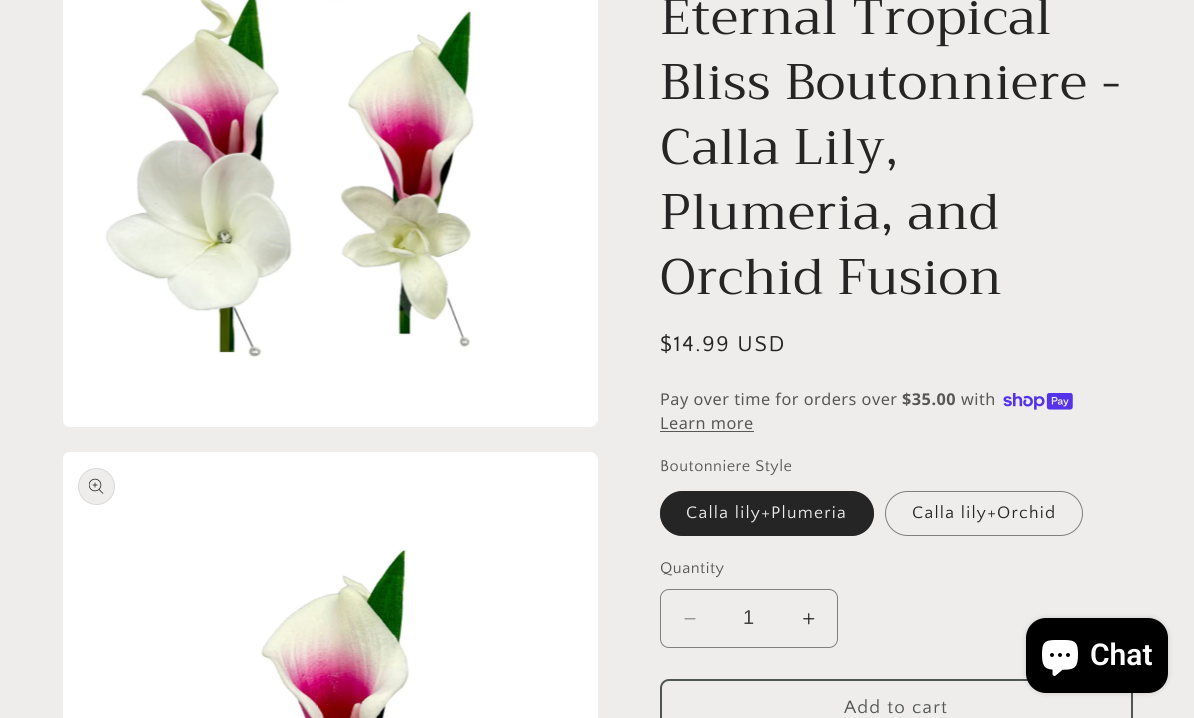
import math
import cairocffi as cairo

surface = cairo.ImageSurface(cairo.FORMAT_RGB24, 1194, 718)
ctx = cairo.Context(surface)
options = cairo.FontOptions()
options.set_hint_metrics(cairo.HINT_METRICS_OFF)
options.set_hint_style(cairo.HINT_STYLE_NONE)
ctx.set_font_options(options)
ctx.set_miter_limit(4)


def rgb(r, g, b):
    ctx.set_source_rgb(r / 255, g / 255, b / 255)


def face(family, size, italic, bold):
    ctx.select_font_face(family, cairo.FONT_SLANT_ITALIC if italic else cairo.FONT_SLANT_NORMAL, cairo.FONT_WEIGHT_BOLD if bold else cairo.FONT_WEIGHT_NORMAL)
    ctx.set_font_size(size)


def label(x, y, s):
    ctx.move_to(x, y)
    ctx.show_text(s)


def tracked(x, y, s, letter, word):
    ctx.move_to(x, y)
    for ch in s:
        ctx.show_text(ch)
        ctx.rel_move_to(letter + word * (ch == ' '), 0)


def rect(x, y, w, h):
    ctx.rectangle(x, y, w, h)
    ctx.fill()


def rrect(x, y, w, h, r):
    ctx.new_sub_path()
    for i, (u, v) in enumerate([(x + w - r, y + h - r), (x + r, y + h - r), (x + r, y + r), (x + w - r, y + r)]):
        ctx.arc(u, v, r, i * math.pi / 2, (i + 1) * math.pi / 2)
    ctx.close_path()


def soft_shadow(x, y, w, h, r, blur, alpha):
    ctx.push_group_with_content(cairo.CONTENT_ALPHA)
    ctx.set_operator(cairo.OPERATOR_SOURCE)
    for i in range(15, -16, -2):
        e = blur * i / 6
        if min(w, h) + 2 * e > 0:
            ctx.set_source_rgba(0, 0, 0, alpha * math.erfc((i - 1) / 8.5) / 2)
            rrect(x - e, y - e, w + 2 * e, h + 2 * e, max(0, min(r + e + blur * .6, min(w, h) / 2 + e)))
            ctx.fill()
    ctx.mask(ctx.pop_group())


def image(path, x, y, w, h):
    ctx.save()
    ctx.set_source_surface(cairo.ImageSurface.create_from_png(path), x, y)
    ctx.rectangle(x, y, w, h)
    ctx.fill()
    ctx.restore()


rgb(239, 236, 236)
ctx.paint()
image('image0.png', 63, 0, 535, 427)
image('image1.png', 63, 452, 535, 266)
rgb(239, 236, 236)
ctx.arc(96.5, 486.5, 18.5, 0, 2 * math.pi)
ctx.fill()
ctx.arc(96.5, 486.5, 18, 0, 2 * math.pi)
ctx.set_source_rgba(0.145, 0.145, 0.145, 0.1)
ctx.set_line_width(1)
ctx.stroke()
image('image2.png', 89, 478, 15, 16)
face('Trirong', 50, 0, 0)
rgb(37, 37, 37)
tracked(660, 34, 'Eternal Tropical', 0.75, 0)
tracked(660, 99, 'Bliss Boutonniere -', 0.75, 0)
tracked(660, 164, 'Calla Lily,', 0.75, 0)
tracked(660, 229, 'Plumeria, and', 0.75, 0)
tracked(660, 294, 'Orchid Fusion', 0.75, 0)
face('Quattrocento Sans', 22.5, 0, 0)
tracked(660, 351, '$14.99 USD', 1.6, 0)
face('Noto Sans', 16.25, 0, 0)
rgb(88, 87, 87)
tracked(660, 405, 'Pay over time for orders over', 0.5, 0)
face('Noto Sans', 16.25, 0, 1)
tracked(902, 405, '$35.00', 0.5, 0)
face('Noto Sans', 16.25, 0, 0)
tracked(961, 405, 'with', 0.5, 0)
image('image3.png', 1003, 393, 70, 17)
tracked(660, 429, 'Learn more', 0.5, 0)
rect(660, 431, 94, 1)
face('Quattrocento Sans', 16.25, 0, 0)
tracked(660, 471, 'Boutonniere Style', 0.5, 0)
rgb(37, 37, 37)
rrect(660, 491, 214, 45, 22.5)
ctx.fill()
rrect(660.5, 491.5, 213, 44, 22)
ctx.set_source_rgba(0.145, 0.145, 0.145, 0.55)
ctx.stroke()
face('Quattrocento Sans', 17.5, 0, 0)
rgb(239, 236, 236)
tracked(686, 518, 'Calla lily+Plumeria', 1.25, 0)
rrect(885.5, 491.5, 197, 44, 22)
rgb(128, 127, 127)
ctx.stroke()
rgb(37, 37, 37)
tracked(912, 518, 'Calla lily+Orchid', 1.25, 0)
face('Quattrocento Sans', 16.25, 0, 0)
rgb(88, 87, 87)
tracked(660, 573, 'Quantity', 0.5, 0)
image('image4.png', 684, 618, 12, 2)
image('image5.png', 803, 613, 12, 12)
rrect(660.5, 589.5, 177, 58, 8.5)
rgb(128, 127, 127)
ctx.stroke()
face('Liberation Sans', 20, 0, 0)
rgb(67, 67, 67)
label(743, 624, '1')
rrect(661, 680, 471, 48, 8)
rgb(80, 86, 85)
ctx.set_line_width(2)
ctx.stroke()
face('Quattrocento Sans', 18.75, 0, 0)
tracked(844, 713, 'Add to cart', 1.25, 0)
rgb(0, 0, 0)
soft_shadow(1026, 618, 142, 75, 20, 3, 0.15)
rgb(0, 0, 0)
rrect(1026, 618, 142, 75, 20)
ctx.fill()
image('image6.png', 1042, 640, 36, 36)
face('Roboto SemiBold', 30, 0, 0)
rgb(255, 255, 255)
label(1090, 665, 'Chat')
surface.write_to_png('render.png')
